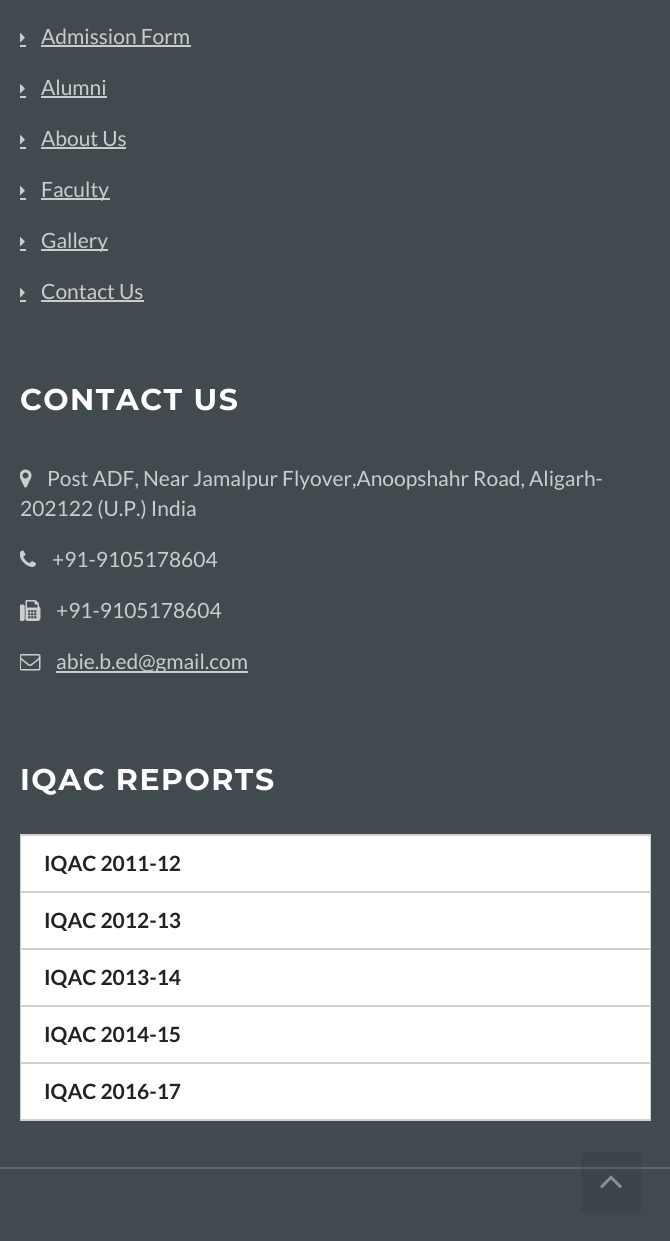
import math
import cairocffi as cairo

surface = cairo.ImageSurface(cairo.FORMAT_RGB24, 670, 1241)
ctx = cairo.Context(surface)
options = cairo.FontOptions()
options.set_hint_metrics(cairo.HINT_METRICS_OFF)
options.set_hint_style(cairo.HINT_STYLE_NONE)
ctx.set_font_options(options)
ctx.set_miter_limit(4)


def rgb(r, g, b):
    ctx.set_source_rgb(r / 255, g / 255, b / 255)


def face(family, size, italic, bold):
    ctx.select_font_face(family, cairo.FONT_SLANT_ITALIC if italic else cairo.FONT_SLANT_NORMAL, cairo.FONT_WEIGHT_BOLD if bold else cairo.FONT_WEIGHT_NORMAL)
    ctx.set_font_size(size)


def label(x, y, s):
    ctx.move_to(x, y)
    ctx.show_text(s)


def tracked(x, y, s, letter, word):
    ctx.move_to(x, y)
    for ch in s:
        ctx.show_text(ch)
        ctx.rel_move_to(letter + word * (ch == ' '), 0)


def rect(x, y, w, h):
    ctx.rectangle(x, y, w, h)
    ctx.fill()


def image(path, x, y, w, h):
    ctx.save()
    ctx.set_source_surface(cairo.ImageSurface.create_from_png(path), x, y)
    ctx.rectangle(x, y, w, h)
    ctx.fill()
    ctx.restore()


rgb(65, 75, 79)
ctx.paint()
rgb(60, 69, 73)
rect(581, 1152, 60, 15)
image('image0.png', 20, 33, 5, 10)
face('Lato', 21, 0, 0)
rgb(204, 204, 204)
label(41, 44, 'Admission Form')
rect(20, 45, 6, 2)
rect(41, 45, 150, 2)
image('image0.png', 20, 84, 5, 10)
label(41, 95, 'Alumni')
rect(20, 96, 6, 2)
rect(41, 96, 66, 2)
image('image0.png', 20, 135, 5, 10)
label(41, 146, 'About Us')
rect(20, 147, 6, 2)
rect(41, 147, 85, 2)
image('image0.png', 20, 186, 5, 10)
rect(41, 198, 69, 2)
label(41, 197, 'Faculty')
rect(20, 198, 6, 2)
image('image0.png', 20, 237, 5, 10)
rect(41, 249, 67, 2)
label(41, 248, 'Gallery')
rect(20, 249, 6, 2)
image('image0.png', 20, 288, 5, 10)
label(41, 299, 'Contact Us')
rect(20, 300, 6, 2)
rect(41, 300, 103, 2)
face('Montserrat', 30, 0, 1)
rgb(255, 255, 255)
tracked(20, 410, 'CONTACT US', 1.5, 0)
image('image1.png', 20, 469, 12, 19)
face('Lato', 21, 0, 0)
rgb(204, 204, 204)
label(47, 486, 'Post ADF, Near Jamalpur Flyover,Anoopshahr Road, Aligarh-')
label(20, 516, '202122 (U.P.) India')
image('image2.png', 20, 550, 16, 17)
label(52, 567, '+91-9105178604')
image('image3.png', 20, 600, 21, 21)
label(56, 618, '+91-9105178604')
image('image4.png', 20, 654, 21, 17)
rect(56, 671, 192, 2)
label(56, 669, 'abie.b.ed@gmail.com')
face('Montserrat', 30, 0, 1)
rgb(255, 255, 255)
tracked(20, 790, 'IQAC REPORTS', 1.5, 0)
rgb(207, 207, 207)
rect(20, 834, 631, 2)
rect(650, 834, 1, 287)
rect(20, 834, 2, 287)
rgb(255, 255, 255)
rect(21, 836, 629, 55)
rgb(207, 207, 207)
rect(21, 891, 629, 2)
face('Lato', 21, 0, 1)
rgb(34, 34, 34)
label(44, 871, 'IQAC 2011-12')
rgb(255, 255, 255)
rect(21, 893, 629, 55)
rgb(207, 207, 207)
rect(21, 948, 629, 2)
rgb(34, 34, 34)
label(44, 928, 'IQAC 2012-13')
rgb(255, 255, 255)
rect(21, 950, 629, 55)
rgb(207, 207, 207)
rect(21, 1005, 629, 2)
rgb(34, 34, 34)
label(44, 985, 'IQAC 2013-14')
rgb(255, 255, 255)
rect(21, 1007, 629, 55)
rgb(207, 207, 207)
rect(21, 1062, 629, 2)
rgb(34, 34, 34)
label(44, 1042, 'IQAC 2014-15')
rgb(255, 255, 255)
rect(21, 1064, 629, 55)
rgb(207, 207, 207)
rect(21, 1119, 629, 2)
rgb(34, 34, 34)
label(44, 1099, 'IQAC 2016-17')
rgb(60, 69, 73)
rect(581, 1169, 60, 43)
rgb(94, 103, 107)
rect(0, 1167, 670, 2)
rgb(86, 95, 98)
rect(581, 1167, 60, 2)
image('image5.png', 600, 1175, 22, 13)
surface.write_to_png('render.png')
